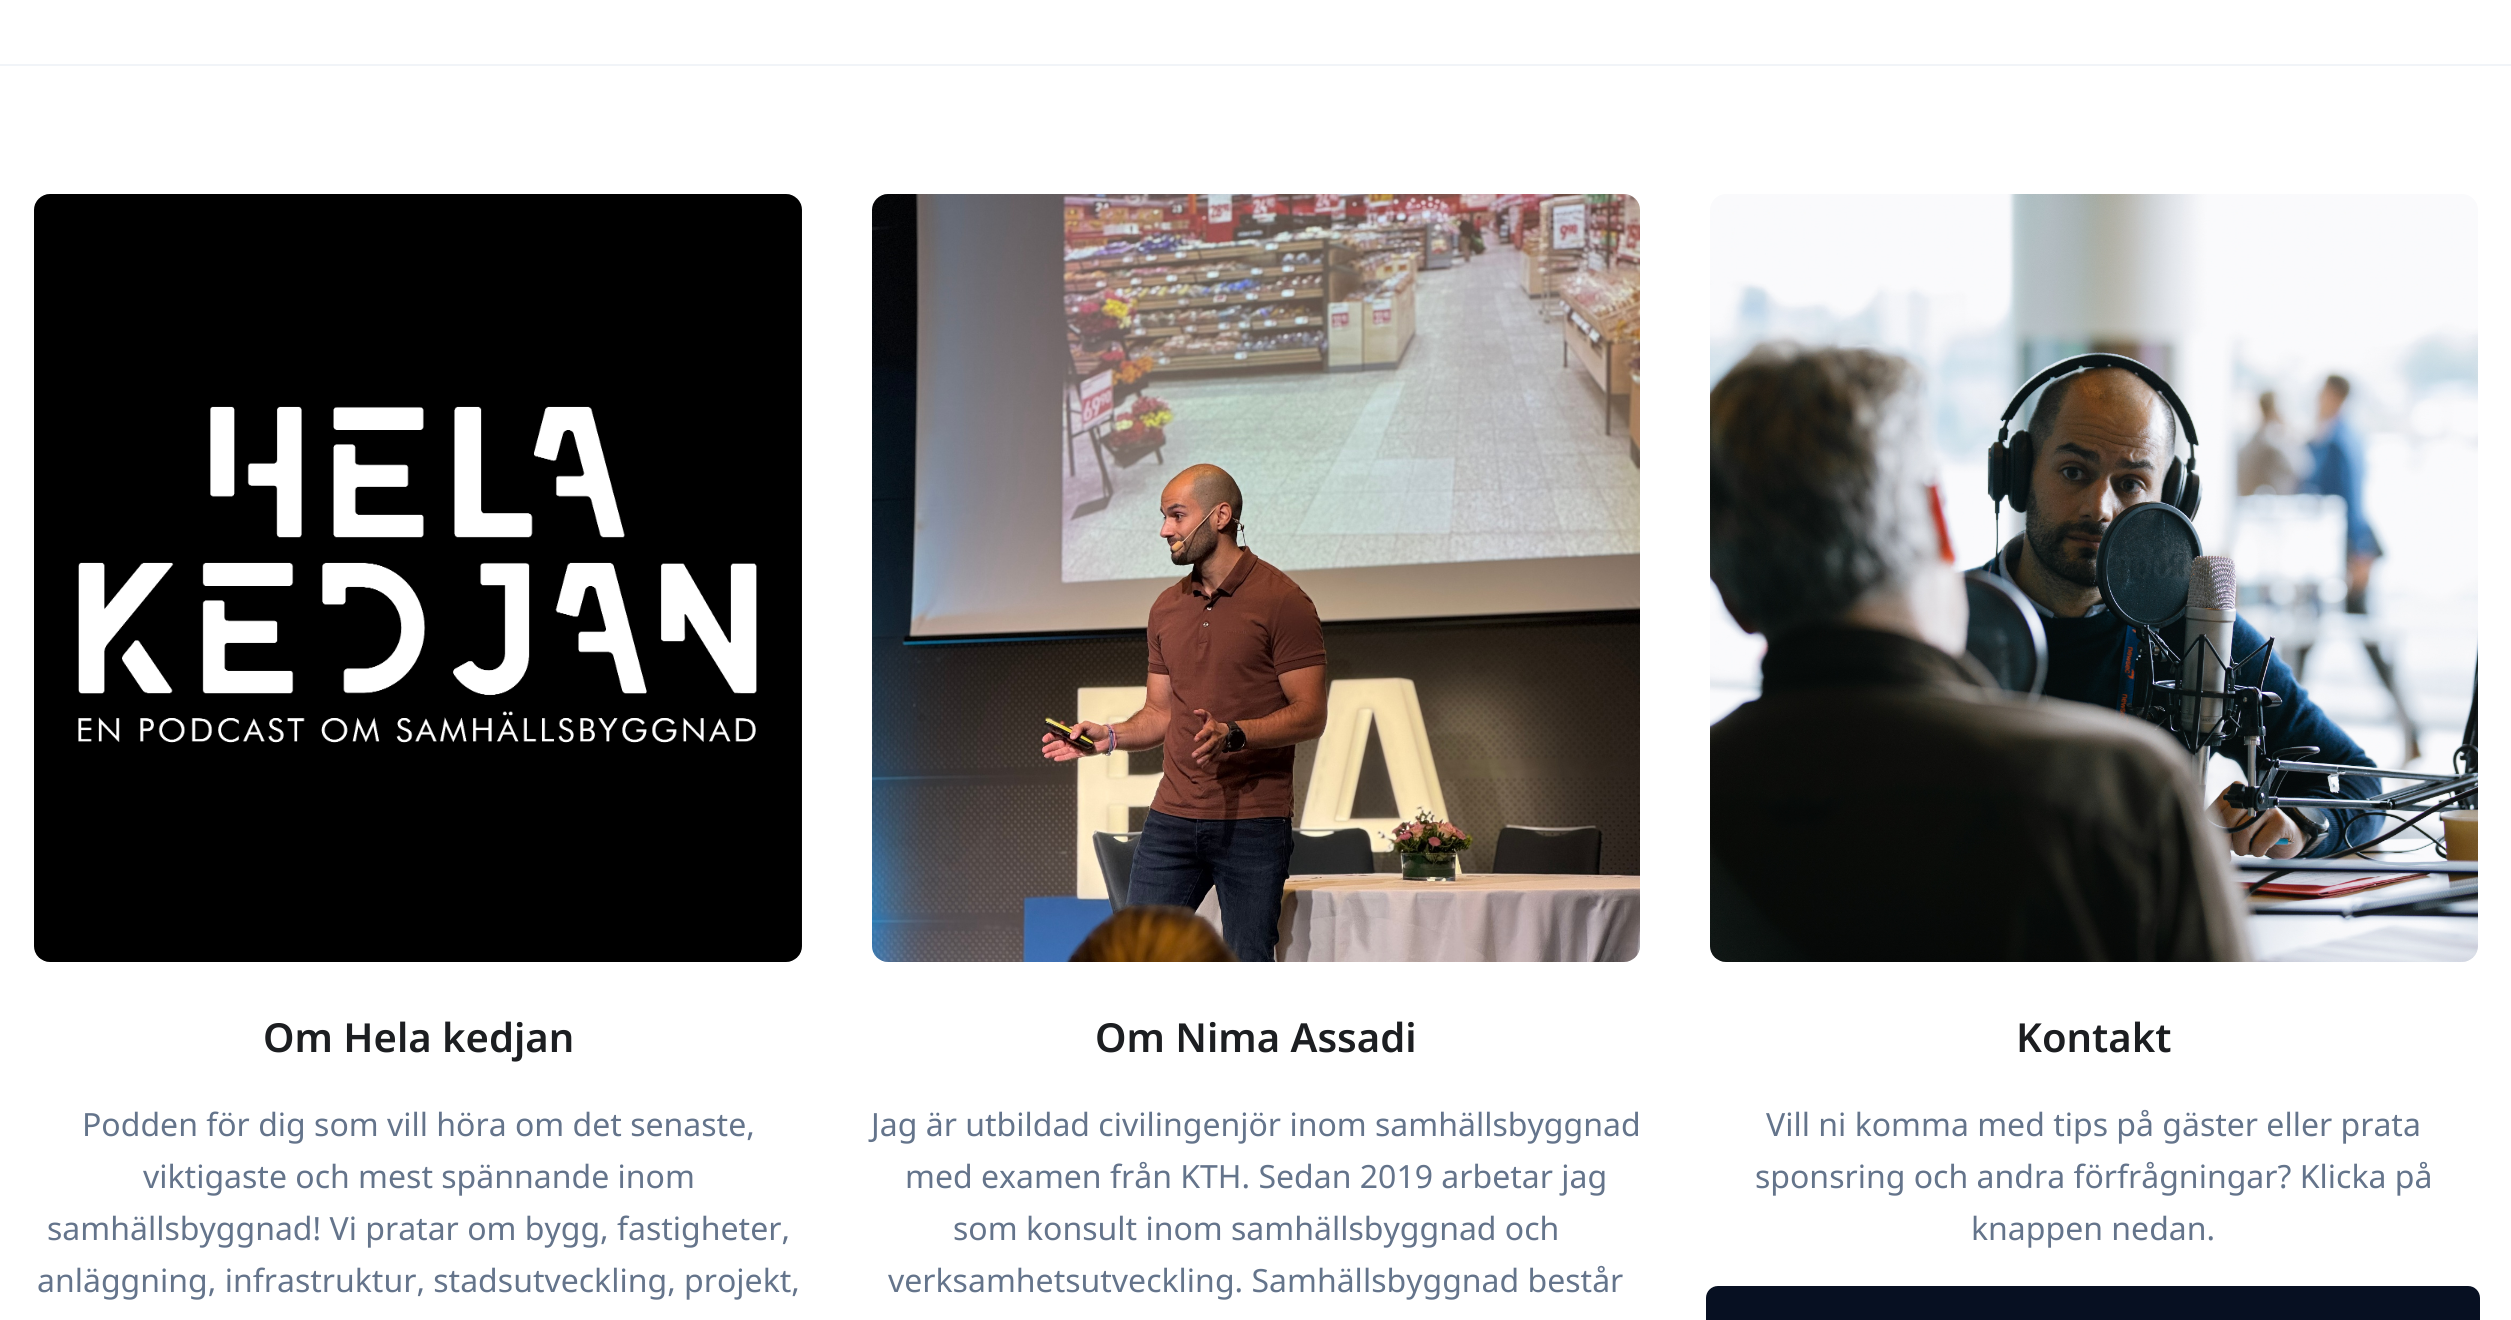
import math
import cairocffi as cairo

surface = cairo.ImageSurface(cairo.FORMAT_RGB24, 2511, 1320)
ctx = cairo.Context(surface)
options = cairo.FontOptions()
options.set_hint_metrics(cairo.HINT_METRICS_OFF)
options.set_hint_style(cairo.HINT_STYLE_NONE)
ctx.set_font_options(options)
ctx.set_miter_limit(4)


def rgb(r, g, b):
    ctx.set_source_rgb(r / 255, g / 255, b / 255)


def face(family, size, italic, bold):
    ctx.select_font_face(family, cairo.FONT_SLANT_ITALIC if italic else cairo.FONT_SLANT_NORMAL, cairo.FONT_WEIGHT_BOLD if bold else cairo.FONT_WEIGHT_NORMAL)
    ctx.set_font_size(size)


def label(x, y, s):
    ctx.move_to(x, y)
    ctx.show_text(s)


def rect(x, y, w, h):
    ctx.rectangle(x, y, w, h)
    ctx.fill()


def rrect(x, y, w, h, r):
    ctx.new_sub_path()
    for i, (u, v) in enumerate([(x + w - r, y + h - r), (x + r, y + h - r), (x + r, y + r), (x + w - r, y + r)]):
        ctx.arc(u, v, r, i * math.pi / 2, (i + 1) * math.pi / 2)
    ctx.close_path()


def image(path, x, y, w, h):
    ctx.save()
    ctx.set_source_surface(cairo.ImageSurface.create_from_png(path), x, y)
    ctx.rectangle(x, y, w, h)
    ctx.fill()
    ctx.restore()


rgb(255, 255, 255)
ctx.paint()
rgb(241, 244, 248)
rect(0, 64, 2511, 2)
image('image0.png', 34, 194, 768, 768)
face('Noto Sans SemiBold', 40, 0, 0)
rgb(28, 30, 33)
label(263, 1052, 'Om Hela kedjan')
face('Noto Sans', 32, 0, 0)
rgb(100, 116, 139)
label(82, 1136, 'Podden för dig som vill höra om det senaste,')
label(143, 1188, 'viktigaste och mest spännande inom')
label(47, 1240, 'samhällsbyggnad! Vi pratar om bygg, fastigheter,')
label(37, 1292, 'anläggning, infrastruktur, stadsutveckling, projekt,')
image('image1.png', 872, 194, 768, 768)
face('Noto Sans SemiBold', 40, 0, 0)
rgb(28, 30, 33)
label(1095, 1052, 'Om Nima Assadi')
face('Noto Sans', 32, 0, 0)
rgb(100, 116, 139)
label(871, 1136, 'Jag är utbildad civilingenjör inom samhällsbyggnad')
label(905, 1188, 'med examen från KTH. Sedan 2019 arbetar jag')
label(953, 1240, 'som konsult inom samhällsbyggnad och')
label(888, 1292, 'verksamhetsutveckling. Samhällsbyggnad består')
image('image2.png', 1710, 194, 768, 768)
face('Noto Sans SemiBold', 40, 0, 0)
rgb(28, 30, 33)
label(2016, 1052, 'Kontakt')
face('Noto Sans', 32, 0, 0)
rgb(100, 116, 139)
label(1766, 1136, 'Vill ni komma med tips på gäster eller prata')
label(1755, 1188, 'sponsring och andra förfrågningar? Klicka på')
label(1971, 1240, 'knappen nedan.')
rgb(7, 16, 34)
rrect(1706, 1286, 774, 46, 12)
ctx.fill()
surface.write_to_png('render.png')
